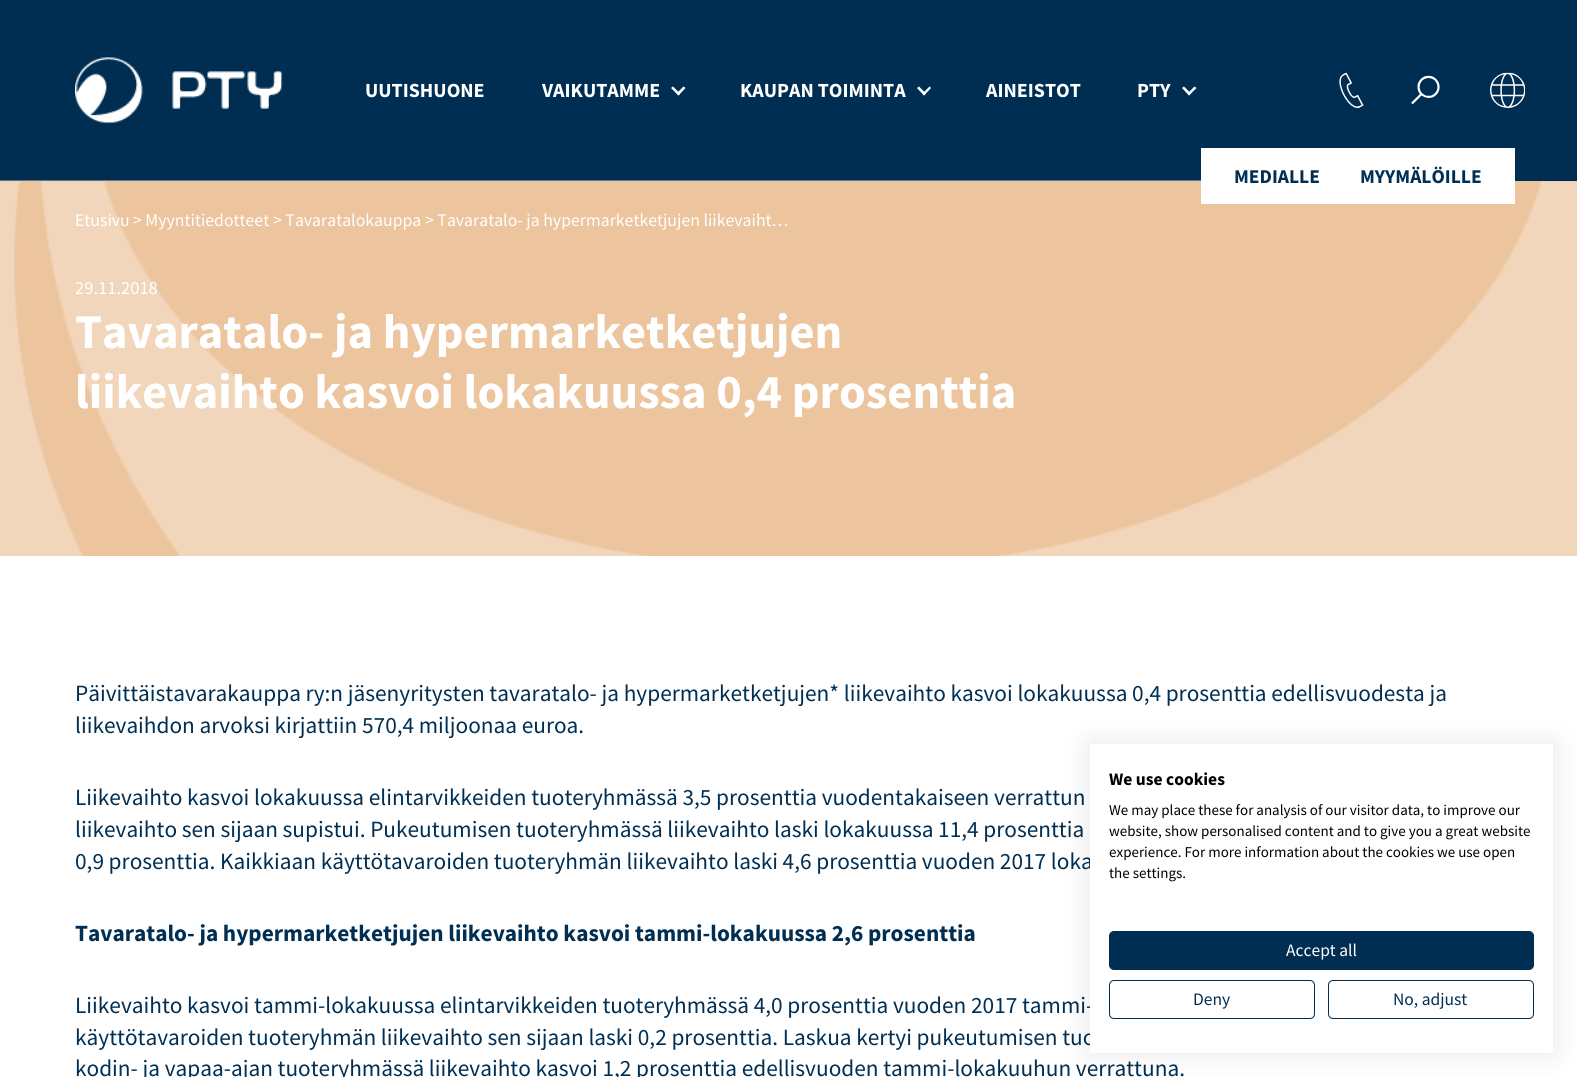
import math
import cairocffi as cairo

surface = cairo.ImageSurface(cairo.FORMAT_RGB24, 1577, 1077)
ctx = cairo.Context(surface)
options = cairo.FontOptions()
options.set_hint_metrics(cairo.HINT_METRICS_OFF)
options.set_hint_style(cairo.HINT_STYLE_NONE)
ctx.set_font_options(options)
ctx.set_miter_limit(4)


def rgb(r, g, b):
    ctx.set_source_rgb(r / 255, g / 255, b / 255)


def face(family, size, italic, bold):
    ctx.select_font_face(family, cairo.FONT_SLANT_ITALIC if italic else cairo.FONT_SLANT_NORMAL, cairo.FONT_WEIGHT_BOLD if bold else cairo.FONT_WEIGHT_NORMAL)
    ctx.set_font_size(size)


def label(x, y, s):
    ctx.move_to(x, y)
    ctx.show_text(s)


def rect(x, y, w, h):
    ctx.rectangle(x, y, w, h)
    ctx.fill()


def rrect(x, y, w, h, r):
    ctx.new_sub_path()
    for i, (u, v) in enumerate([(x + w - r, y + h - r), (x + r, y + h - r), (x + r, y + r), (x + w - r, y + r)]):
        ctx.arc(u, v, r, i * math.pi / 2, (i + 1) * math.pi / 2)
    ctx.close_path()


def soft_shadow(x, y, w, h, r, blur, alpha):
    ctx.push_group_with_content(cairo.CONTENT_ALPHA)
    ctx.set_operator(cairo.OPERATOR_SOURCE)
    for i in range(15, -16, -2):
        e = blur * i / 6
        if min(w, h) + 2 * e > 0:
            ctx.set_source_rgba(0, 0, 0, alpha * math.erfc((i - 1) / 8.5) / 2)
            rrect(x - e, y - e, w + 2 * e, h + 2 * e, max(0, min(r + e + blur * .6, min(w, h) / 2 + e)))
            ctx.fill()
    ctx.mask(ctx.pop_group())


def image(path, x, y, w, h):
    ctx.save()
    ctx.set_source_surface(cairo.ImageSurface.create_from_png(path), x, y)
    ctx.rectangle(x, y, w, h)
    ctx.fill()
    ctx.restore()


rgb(255, 255, 255)
ctx.paint()
rgb(0, 46, 82)
rect(0, 0, 1577, 181)
image('image0.png', 75, 57, 208, 67)
face('Source Sans Pro', 20, 0, 1)
rgb(255, 255, 255)
label(365, 97, 'UUTISHUONE')
label(542, 97, 'VAIKUTAMME')
ctx.new_path()
ctx.move_to(678.5, 95.5)
ctx.line_to(671, 88)
ctx.line_to(673, 86.5)
ctx.line_to(680, 93.5)
ctx.close_path()
ctx.fill()
ctx.new_path()
ctx.move_to(678.5, 95.5)
ctx.line_to(676.5, 93.5)
ctx.line_to(683.5, 86.5)
ctx.line_to(685.5, 88)
ctx.close_path()
ctx.fill()
label(740, 97, 'KAUPAN TOIMINTA')
ctx.new_path()
ctx.move_to(924, 95.5)
ctx.line_to(917, 88)
ctx.line_to(919, 86.5)
ctx.line_to(926, 93.5)
ctx.close_path()
ctx.fill()
ctx.new_path()
ctx.move_to(924, 95.5)
ctx.line_to(922.5, 93.5)
ctx.line_to(929.5, 86.5)
ctx.line_to(931, 88)
ctx.close_path()
ctx.fill()
label(986, 97, 'AINEISTOT')
label(1137, 97, 'PTY')
ctx.new_path()
ctx.move_to(1189, 95.5)
ctx.line_to(1182, 88)
ctx.line_to(1184, 86.5)
ctx.line_to(1191, 93.5)
ctx.close_path()
ctx.fill()
ctx.new_path()
ctx.move_to(1189, 95.5)
ctx.line_to(1187.5, 93.5)
ctx.line_to(1194.5, 86.5)
ctx.line_to(1196.5, 88)
ctx.close_path()
ctx.fill()
image('image1.png', 1339, 72, 25, 36)
image('image2.png', 1411, 75, 29, 30)
image('image3.png', 1490, 72, 35, 36)
rgb(87, 122, 143)
rect(0, 180, 1201, 1)
rgb(236, 196, 157)
rect(0, 181, 1577, 375)
image('image4.png', 0, 181, 1577, 375)
rgb(255, 255, 255)
rect(1201, 148, 314, 56)
face('Source Sans Pro', 19.5, 0, 1)
rgb(0, 47, 83)
label(1234, 183, 'MEDIALLE')
label(1360, 183, 'MYYMÄLÖILLE')
face('Source Sans Pro', 17.75, 0, 0)
rgb(255, 255, 255)
label(75, 226, 'Etusivu')
label(133, 226, '> Myyntitiedotteet')
label(273, 226, '> Tavaratalokauppa')
label(425, 226, '> Tavaratalo- ja hypermarketketjujen liikevaiht…')
face('Source Sans Pro', 18.5, 0, 0)
label(75, 294, '29.11.2018')
face('Source Sans Pro', 48.5, 0, 1)
label(75, 348, 'Tavaratalo- ja hypermarketketjujen')
label(75, 408, 'liikevaihto kasvoi lokakuussa 0,4 prosenttia')
face('Source Sans Pro', 23.3, 0, 0)
rgb(0, 47, 83)
label(75, 701, 'Päivittäistavarakauppa ry:n jäsenyritysten tavaratalo- ja hypermarketketjujen* liikevaihto kasvoi lokakuussa 0,4 prosenttia edellisvuodesta ja')
label(75, 733, 'liikevaihdon arvoksi kirjattiin 570,4 miljoonaa euroa.')
label(75, 805, 'Liikevaihto kasvoi lokakuussa elintarvikkeiden tuoteryhmässä 3,5 prosenttia vuodentakaiseen verrattun')
label(75, 837, 'liikevaihto sen sijaan supistui. Pukeutumisen tuoteryhmässä liikevaihto laski lokakuussa 11,4 prosenttia')
label(75, 869, '0,9 prosenttia. Kaikkiaan käyttötavaroiden tuoteryhmän liikevaihto laski 4,6 prosenttia vuoden 2017 loka')
face('Source Sans Pro', 23.3, 0, 1)
label(75, 941, 'Tavaratalo- ja hypermarketketjujen liikevaihto kasvoi tammi-lokakuussa 2,6 prosenttia')
face('Source Sans Pro', 23.3, 0, 0)
label(75, 1013, 'Liikevaihto kasvoi tammi-lokakuussa elintarvikkeiden tuoteryhmässä 4,0 prosenttia vuoden 2017 tammi-')
label(75, 1045, 'käyttötavaroiden tuoteryhmän liikevaihto sen sijaan laski 0,2 prosenttia. Laskua kertyi pukeutumisen tuo')
label(75, 1076, 'kodin- ja vapaa-ajan tuoteryhmässä liikevaihto kasvoi 1,2 prosenttia edellisvuoden tammi-lokakuuhun verrattuna.')
rgb(0, 0, 0)
soft_shadow(1090, 744, 463, 309, 0, 15, 0.1)
rgb(255, 255, 255)
rect(1090, 744, 463, 309)
face('Source Sans Pro', 17.5, 0, 1)
rgb(0, 0, 0)
label(1109, 785, 'We use cookies')
face('Source Sans Pro', 15, 0, 0)
label(1109, 815, 'We may place these for analysis of our visitor data, to improve our')
label(1109, 836, 'website, show personalised content and to give you a great website')
label(1109, 857, 'experience. For more information about the cookies we use open')
label(1109, 878, 'the settings.')
rgb(0, 46, 82)
rrect(1109.5, 931.5, 424, 38, 4.5)
ctx.fill_preserve()
ctx.set_line_width(1)
ctx.stroke()
face('Source Sans Pro', 17.5, 0, 0)
rgb(255, 255, 255)
label(1286, 956, 'Accept all')
rrect(1109.5, 980.5, 205, 38, 4.5)
rgb(0, 46, 82)
ctx.stroke()
rgb(0, 47, 83)
label(1193, 1005, 'Deny')
rrect(1328.5, 980.5, 205, 38, 4.5)
rgb(0, 46, 82)
ctx.stroke()
rgb(0, 47, 83)
label(1393, 1005, 'No, adjust')
surface.write_to_png('render.png')
